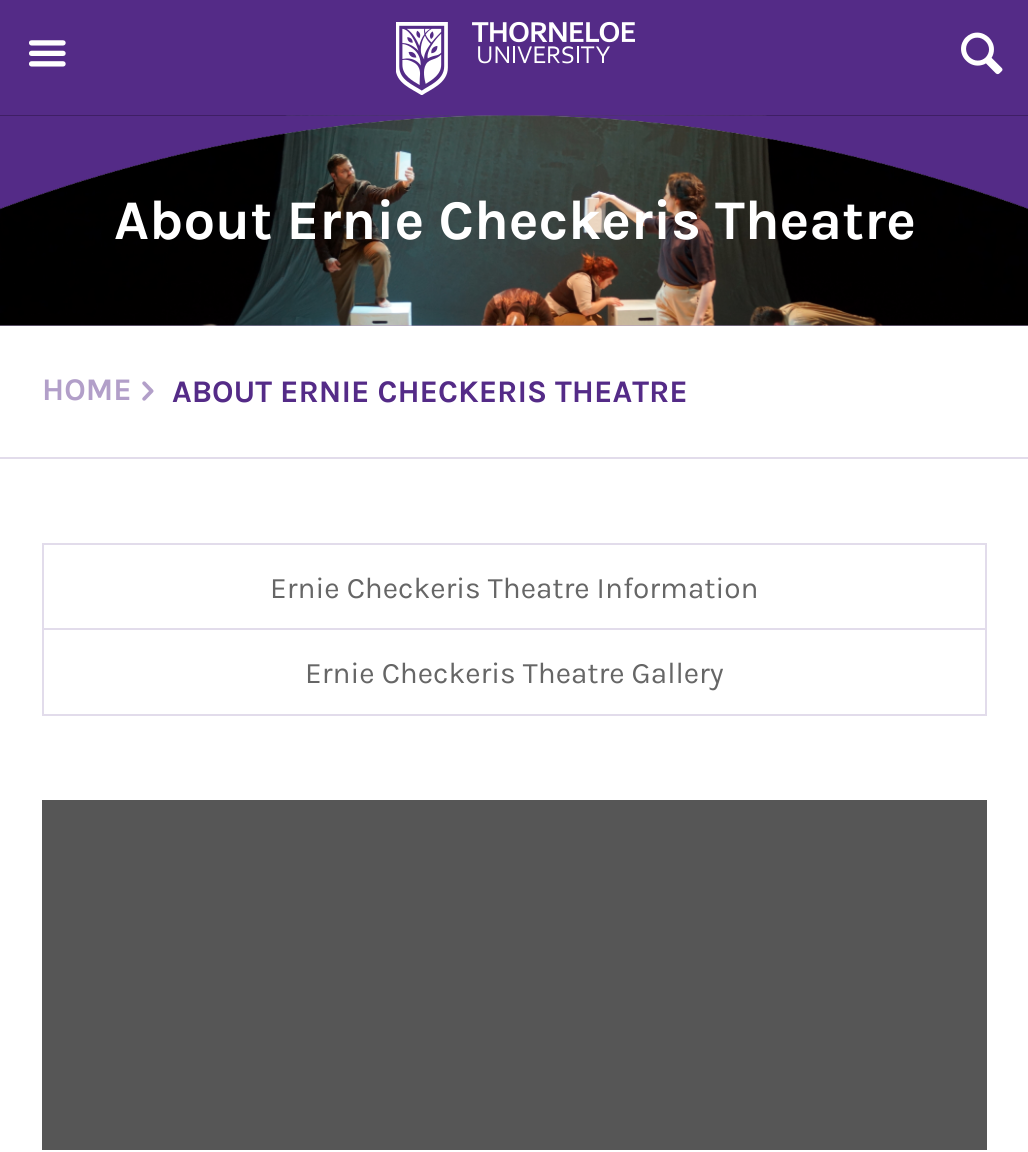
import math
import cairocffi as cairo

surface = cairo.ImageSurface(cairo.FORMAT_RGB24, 1028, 1152)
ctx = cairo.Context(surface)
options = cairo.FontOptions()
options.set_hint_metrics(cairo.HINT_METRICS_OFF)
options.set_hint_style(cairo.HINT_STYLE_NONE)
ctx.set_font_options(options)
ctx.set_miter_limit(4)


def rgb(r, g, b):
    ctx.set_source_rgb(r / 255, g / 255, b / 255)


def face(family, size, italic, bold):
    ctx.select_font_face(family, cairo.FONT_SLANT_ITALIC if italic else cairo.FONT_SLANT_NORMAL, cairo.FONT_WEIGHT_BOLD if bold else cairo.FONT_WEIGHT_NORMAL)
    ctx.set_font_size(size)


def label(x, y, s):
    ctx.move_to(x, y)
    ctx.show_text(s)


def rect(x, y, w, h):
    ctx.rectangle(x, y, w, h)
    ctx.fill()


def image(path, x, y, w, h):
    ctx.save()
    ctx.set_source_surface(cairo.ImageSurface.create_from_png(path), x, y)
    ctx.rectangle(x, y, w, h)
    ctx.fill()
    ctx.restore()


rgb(84, 43, 135)
ctx.paint()
image('image0.png', 29, 40, 37, 27)
image('image1.png', 396, 21, 239, 74)
image('image2.png', 961, 32, 42, 43)
rgb(178, 159, 201)
rect(0, 325, 1028, 1)
image('image4.png', 0, 115, 1028, 211)
face('Karla', 56, 0, 1)
rgb(255, 255, 255)
label(114, 239, 'About Ernie Checkeris Theatre')
image('image3.png', 0, 115, 1028, 95)
rect(0, 326, 1028, 131)
rgb(226, 220, 235)
rect(0, 457, 1028, 2)
face('Karla', 31.5, 0, 1)
rgb(178, 159, 201)
label(42, 400, 'HOME')
image('image5.png', 142, 381, 12, 20)
rgb(84, 43, 135)
label(172, 402, 'ABOUT ERNIE CHECKERIS THEATRE')
rgb(255, 255, 255)
rect(0, 459, 1028, 693)
rgb(226, 220, 235)
rect(42, 714, 945, 2)
rect(42, 543, 945, 2)
rect(985, 543, 2, 85)
rect(42, 543, 2, 85)
face('Karla', 29.75, 0, 0)
rgb(102, 102, 102)
label(270, 598, 'Ernie Checkeris Theatre Information')
rgb(226, 220, 235)
rect(42, 628, 945, 2)
rect(985, 628, 2, 86)
rect(42, 628, 2, 86)
rgb(102, 102, 102)
label(305, 683, 'Ernie Checkeris Theatre Gallery')
rgb(86, 86, 86)
rect(42, 800, 945, 350)
surface.write_to_png('render.png')
